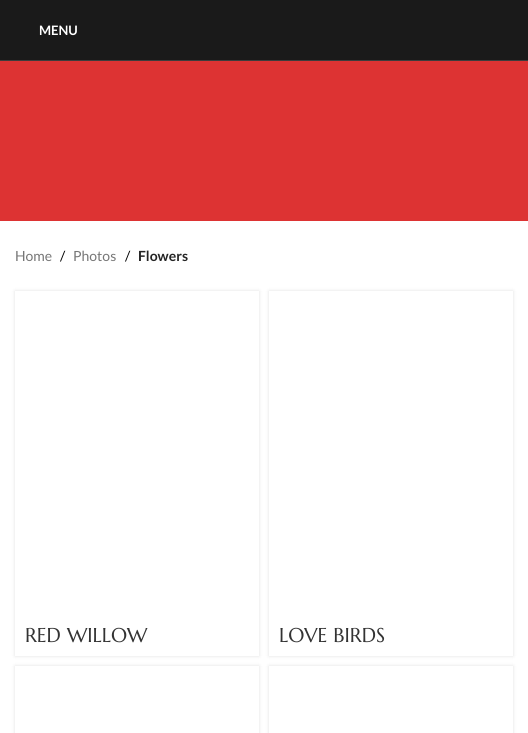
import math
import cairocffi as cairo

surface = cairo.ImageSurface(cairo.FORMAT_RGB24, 528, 733)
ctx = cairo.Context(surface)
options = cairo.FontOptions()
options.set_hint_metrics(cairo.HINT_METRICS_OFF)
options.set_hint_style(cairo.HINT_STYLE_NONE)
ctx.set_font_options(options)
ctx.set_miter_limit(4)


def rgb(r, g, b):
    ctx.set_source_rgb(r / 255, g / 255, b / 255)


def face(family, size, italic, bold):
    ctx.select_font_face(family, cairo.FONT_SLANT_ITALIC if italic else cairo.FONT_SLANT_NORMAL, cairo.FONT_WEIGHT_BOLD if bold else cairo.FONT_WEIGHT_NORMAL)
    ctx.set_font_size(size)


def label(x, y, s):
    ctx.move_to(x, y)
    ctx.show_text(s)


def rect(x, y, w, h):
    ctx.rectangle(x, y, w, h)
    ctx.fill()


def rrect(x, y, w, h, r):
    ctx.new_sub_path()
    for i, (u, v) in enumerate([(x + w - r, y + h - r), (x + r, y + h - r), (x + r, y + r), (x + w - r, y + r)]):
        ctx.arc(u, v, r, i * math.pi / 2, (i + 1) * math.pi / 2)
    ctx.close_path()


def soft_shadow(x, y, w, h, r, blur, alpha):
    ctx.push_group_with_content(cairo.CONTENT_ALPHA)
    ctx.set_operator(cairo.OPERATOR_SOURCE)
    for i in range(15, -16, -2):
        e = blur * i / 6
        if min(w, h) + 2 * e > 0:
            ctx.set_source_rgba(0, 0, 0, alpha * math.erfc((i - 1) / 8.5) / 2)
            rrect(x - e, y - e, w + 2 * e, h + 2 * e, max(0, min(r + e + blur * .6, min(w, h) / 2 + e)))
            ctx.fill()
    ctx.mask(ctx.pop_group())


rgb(255, 255, 255)
ctx.paint()
rgb(26, 26, 26)
rect(0, 0, 528, 60)
rgb(60, 60, 60)
rect(0, 60, 528, 1)
face('Lato', 13, 0, 1)
rgb(255, 255, 255)
label(39, 35, 'MENU')
rgb(221, 51, 51)
rect(0, 61, 528, 160)
face('Lato', 14, 0, 0)
rgb(118, 118, 118)
label(15, 261, 'Home')
rgb(0, 0, 0)
label(60, 261, '/')
rgb(118, 118, 118)
label(73, 261, 'Photos')
rgb(0, 0, 0)
label(125, 261, '/')
face('Lato', 14, 0, 1)
rgb(36, 36, 36)
label(138, 261, 'Flowers')
ctx.save()
ctx.set_fill_rule(cairo.FILL_RULE_EVEN_ODD)
ctx.new_path()
ctx.move_to(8, 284)
ctx.line_to(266, 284)
ctx.line_to(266, 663)
ctx.line_to(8, 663)
ctx.close_path()
ctx.move_to(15, 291)
ctx.line_to(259, 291)
ctx.line_to(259, 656)
ctx.line_to(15, 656)
ctx.close_path()
ctx.clip()
rgb(0, 0, 0)
soft_shadow(15, 291, 244, 365, 0, 2, 0.12)
ctx.restore()
face('Marcellus', 20, 0, 0)
rgb(51, 51, 51)
label(25, 642, 'RED WILLOW')
ctx.save()
ctx.set_fill_rule(cairo.FILL_RULE_EVEN_ODD)
ctx.new_path()
ctx.move_to(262, 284)
ctx.line_to(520, 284)
ctx.line_to(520, 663)
ctx.line_to(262, 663)
ctx.close_path()
ctx.move_to(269, 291)
ctx.line_to(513, 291)
ctx.line_to(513, 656)
ctx.line_to(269, 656)
ctx.close_path()
ctx.clip()
rgb(0, 0, 0)
soft_shadow(269, 291, 244, 365, 0, 2, 0.12)
ctx.restore()
label(279, 642, 'LOVE BIRDS')
ctx.save()
ctx.set_fill_rule(cairo.FILL_RULE_EVEN_ODD)
ctx.new_path()
ctx.move_to(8, 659)
ctx.line_to(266, 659)
ctx.line_to(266, 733)
ctx.line_to(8, 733)
ctx.close_path()
ctx.move_to(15, 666)
ctx.line_to(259, 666)
ctx.line_to(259, 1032)
ctx.line_to(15, 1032)
ctx.close_path()
ctx.clip()
rgb(0, 0, 0)
soft_shadow(15, 666, 244, 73, 0, 2, 0.12)
ctx.restore()
ctx.save()
ctx.set_fill_rule(cairo.FILL_RULE_EVEN_ODD)
ctx.new_path()
ctx.move_to(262, 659)
ctx.line_to(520, 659)
ctx.line_to(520, 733)
ctx.line_to(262, 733)
ctx.close_path()
ctx.move_to(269, 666)
ctx.line_to(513, 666)
ctx.line_to(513, 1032)
ctx.line_to(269, 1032)
ctx.close_path()
ctx.clip()
rgb(0, 0, 0)
soft_shadow(269, 666, 244, 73, 0, 2, 0.12)
ctx.restore()
surface.write_to_png('render.png')
